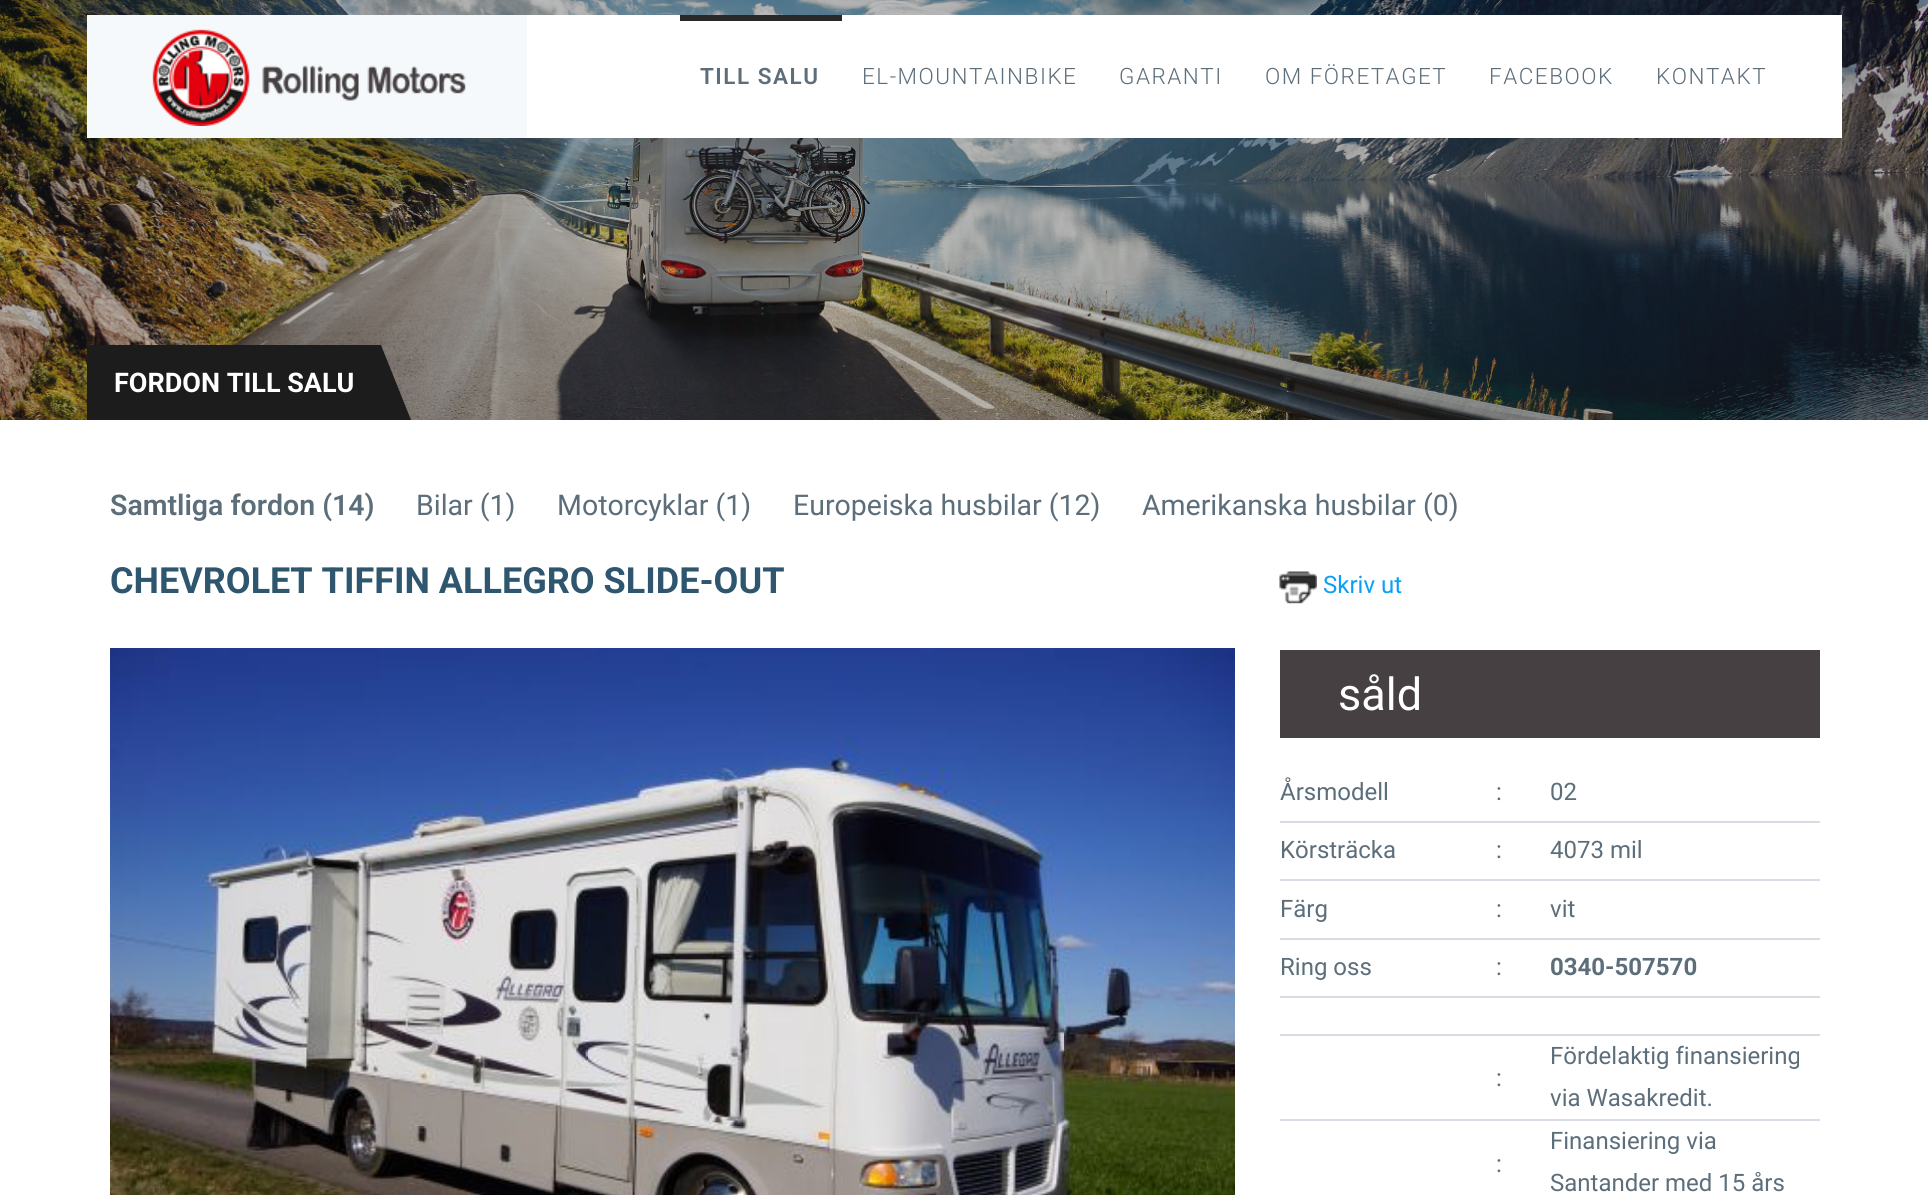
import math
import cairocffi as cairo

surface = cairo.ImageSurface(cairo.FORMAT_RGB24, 1928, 1195)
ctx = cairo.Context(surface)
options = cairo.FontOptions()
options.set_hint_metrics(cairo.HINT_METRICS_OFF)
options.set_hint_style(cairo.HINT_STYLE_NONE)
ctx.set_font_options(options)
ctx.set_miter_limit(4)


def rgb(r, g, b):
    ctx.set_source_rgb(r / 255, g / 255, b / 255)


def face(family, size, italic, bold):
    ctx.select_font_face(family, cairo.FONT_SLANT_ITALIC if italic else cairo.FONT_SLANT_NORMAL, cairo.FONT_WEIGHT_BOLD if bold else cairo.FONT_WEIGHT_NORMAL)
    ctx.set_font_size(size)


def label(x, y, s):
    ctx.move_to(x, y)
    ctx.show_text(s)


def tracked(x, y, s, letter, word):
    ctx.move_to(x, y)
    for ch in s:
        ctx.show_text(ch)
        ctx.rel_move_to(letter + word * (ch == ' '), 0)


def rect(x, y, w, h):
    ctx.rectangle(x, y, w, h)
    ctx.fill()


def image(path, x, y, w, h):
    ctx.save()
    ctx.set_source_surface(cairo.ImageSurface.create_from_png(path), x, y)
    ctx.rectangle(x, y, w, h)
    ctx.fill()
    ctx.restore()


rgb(255, 255, 255)
ctx.paint()
image('image1.png', 0, 0, 1928, 420)
rgb(255, 255, 255)
rect(527, 15, 1315, 123)
rgb(245, 249, 251)
rect(87, 15, 440, 123)
image('image0.png', 152, 29, 314, 97)
rgb(40, 40, 40)
rect(680, 15, 162, 6)
face('Roboto SemiBold', 22.5, 0, 0)
rgb(93, 110, 123)
tracked(700, 84, 'TILL SALU', 1.5, 0)
face('Roboto Light', 22.5, 0, 0)
tracked(862, 84, 'EL-MOUNTAINBIKE', 1.5, 0)
tracked(1119, 84, 'GARANTI', 1.5, 0)
tracked(1265, 84, 'OM FÖRETAGET', 1.5, 0)
tracked(1489, 84, 'FACEBOOK', 1.5, 0)
tracked(1656, 84, 'KONTAKT', 1.5, 0)
rgb(29, 28, 28)
rect(87, 345, 294, 75)
face('Roboto', 27, 0, 1)
rgb(255, 255, 255)
label(114, 392, 'FORDON TILL SALU')
rgb(29, 28, 28)
ctx.new_path()
ctx.move_to(381, 420)
ctx.line_to(381, 345)
ctx.line_to(411, 420)
ctx.close_path()
ctx.fill()
face('Roboto SemiBold', 28.5, 0, 0)
rgb(93, 110, 123)
label(110, 515, 'Samtliga fordon (14)')
face('Roboto', 28.5, 0, 0)
label(416, 515, 'Bilar (1)')
label(557, 515, 'Motorcyklar (1)')
label(793, 515, 'Europeiska husbilar (12)')
label(1142, 515, 'Amerikanska husbilar (0)')
face('Roboto', 36, 0, 1)
rgb(46, 86, 110)
label(110, 593, 'CHEVROLET TIFFIN ALLEGRO SLIDE-OUT')
image('image2.png', 110, 648, 1125, 547)
image('image3.png', 1279, 571, 38, 33)
face('Roboto', 24, 0, 0)
rgb(9, 160, 247)
label(1323, 593, 'Skriv ut')
rgb(70, 64, 66)
rect(1280, 650, 540, 88)
face('Roboto', 45, 0, 0)
rgb(255, 255, 255)
label(1338, 710, 'såld')
rgb(215, 220, 228)
rect(1280, 821, 540, 2)
face('Roboto', 24, 0, 0)
rgb(93, 110, 123)
label(1280, 800, 'Årsmodell')
label(1496, 800, ':')
label(1550, 800, '02')
rgb(215, 220, 228)
rect(1280, 879, 540, 2)
rgb(93, 110, 123)
label(1280, 858, 'Körsträcka')
label(1496, 858, ':')
label(1550, 858, '4073 mil')
rgb(215, 220, 228)
rect(1280, 938, 540, 2)
rgb(93, 110, 123)
label(1280, 917, 'Färg')
label(1496, 917, ':')
label(1550, 917, 'vit')
rgb(215, 220, 228)
rect(1280, 996, 540, 2)
rgb(93, 110, 123)
label(1280, 975, 'Ring oss')
label(1496, 975, ':')
face('Roboto', 24, 0, 1)
label(1550, 975, '0340-507570')
rgb(215, 220, 228)
rect(1280, 1034, 540, 2)
rect(1280, 1119, 540, 2)
face('Roboto', 24, 0, 0)
rgb(93, 110, 123)
label(1496, 1086, ':')
label(1550, 1064, 'Fördelaktig finansiering')
label(1550, 1106, 'via Wasakredit.')
label(1496, 1172, ':')
label(1550, 1149, 'Finansiering via')
label(1550, 1191, 'Santander med 15 års')
surface.write_to_png('render.png')
